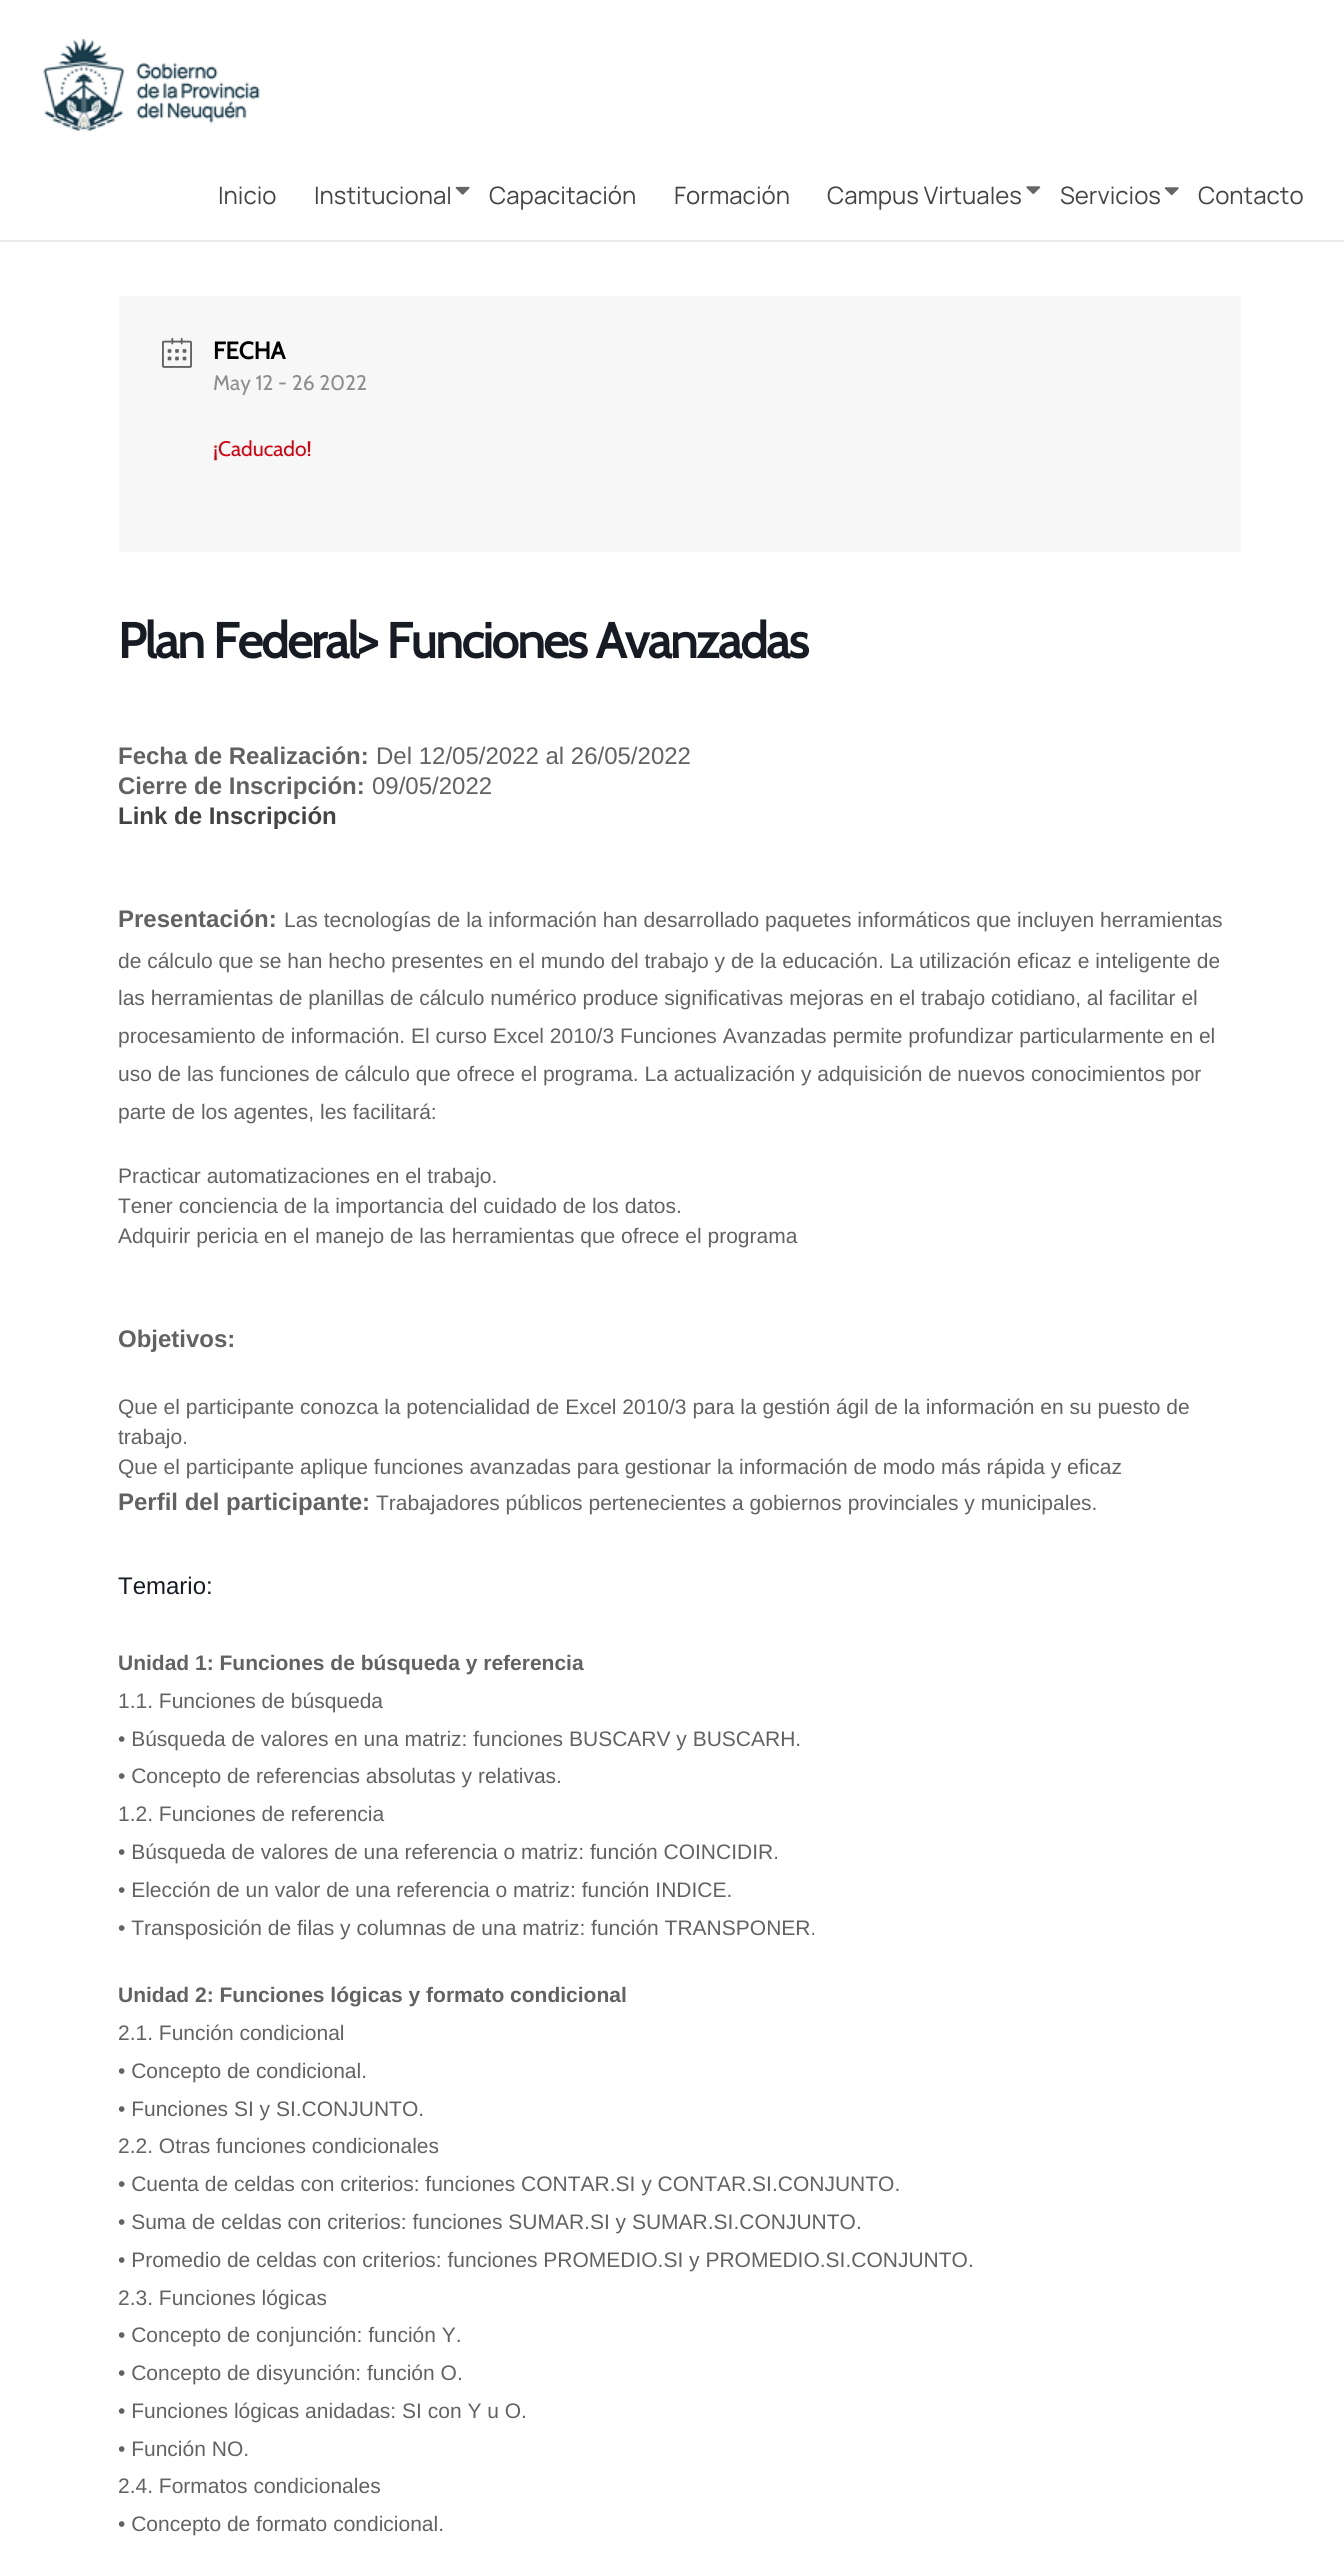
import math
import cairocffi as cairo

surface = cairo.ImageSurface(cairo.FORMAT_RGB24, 1344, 2561)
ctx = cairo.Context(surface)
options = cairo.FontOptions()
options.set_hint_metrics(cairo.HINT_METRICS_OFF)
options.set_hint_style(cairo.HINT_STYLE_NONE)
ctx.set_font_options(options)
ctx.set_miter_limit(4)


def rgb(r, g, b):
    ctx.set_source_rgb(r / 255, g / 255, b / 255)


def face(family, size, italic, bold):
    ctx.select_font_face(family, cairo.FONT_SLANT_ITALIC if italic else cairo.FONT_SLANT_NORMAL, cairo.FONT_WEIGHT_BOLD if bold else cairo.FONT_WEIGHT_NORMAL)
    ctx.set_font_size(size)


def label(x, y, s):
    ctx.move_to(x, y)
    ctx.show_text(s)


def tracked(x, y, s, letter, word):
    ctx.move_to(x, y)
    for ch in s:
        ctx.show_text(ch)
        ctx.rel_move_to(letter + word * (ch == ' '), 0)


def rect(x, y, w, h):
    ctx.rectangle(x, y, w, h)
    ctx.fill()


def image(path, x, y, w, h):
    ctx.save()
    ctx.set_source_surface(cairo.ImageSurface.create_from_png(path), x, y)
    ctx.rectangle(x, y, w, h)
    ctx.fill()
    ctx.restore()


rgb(255, 255, 255)
ctx.paint()
rgb(234, 234, 234)
rect(0, 240, 1344, 2)
image('image0.png', 43, 38, 217, 93)
face('Manrope', 24, 0, 0)
rgb(68, 68, 68)
label(218, 204, 'Inicio')
label(314, 204, 'Institucional')
image('image1.png', 455, 186, 15, 9)
label(489, 204, 'Capacitación')
label(674, 204, 'Formación')
label(827, 204, 'Campus Virtuales')
image('image2.png', 1026, 186, 15, 9)
label(1060, 204, 'Servicios')
image('image3.png', 1164, 187, 15, 9)
label(1198, 204, 'Contacto')
rgb(247, 247, 247)
rect(119, 296, 1122, 256)
image('image4.png', 162, 337, 30, 31)
face('Cabin', 24, 0, 1)
rgb(0, 0, 0)
label(213, 359, 'FECHA')
face('Cabin', 21, 0, 0)
rgb(141, 141, 141)
label(213, 390, 'May 12 - 26 2022')
rgb(216, 0, 12)
label(213, 456, '¡Caducado!')
face('Cabin', 49.5, 0, 1)
rgb(23, 28, 36)
tracked(118, 658, 'Plan Federal> Funciones Avanzadas', -1.5, 0)
face('Liberation Sans', 24, 0, 1)
rgb(98, 98, 98)
label(118, 764, 'Fecha de Realización:')
face('Liberation Sans', 24, 0, 0)
label(376, 764, 'Del 12/05/2022 al 26/05/2022')
face('Liberation Sans', 24, 0, 1)
label(118, 794, 'Cierre de Inscripción:')
face('Liberation Sans', 24, 0, 0)
label(372, 794, '09/05/2022')
face('Liberation Sans', 24, 0, 1)
rgb(68, 68, 68)
label(118, 824, 'Link de Inscripción')
rgb(98, 98, 98)
label(118, 927, 'Presentación:')
face('Liberation Sans', 21, 0, 0)
label(284, 927, 'Las tecnologías de la información han desarrollado paquetes informáticos que incluyen herramientas')
label(118, 968, 'de cálculo que se han hecho presentes en el mundo del trabajo y de la educación. La utilización eficaz e inteligente de')
label(118, 1005, 'las herramientas de planillas de cálculo numérico produce significativas mejoras en el trabajo cotidiano, al facilitar el')
label(118, 1043, 'procesamiento de información. El curso Excel 2010/3 Funciones Avanzadas permite profundizar particularmente en el')
label(118, 1081, 'uso de las funciones de cálculo que ofrece el programa. La actualización y adquisición de nuevos conocimientos por')
label(118, 1119, 'parte de los agentes, les facilitará:')
label(118, 1183, 'Practicar automatizaciones en el trabajo.')
label(118, 1213, 'Tener conciencia de la importancia del cuidado de los datos.')
label(118, 1243, 'Adquirir pericia en el manejo de las herramientas que ofrece el programa')
face('Liberation Sans', 24, 0, 1)
label(118, 1347, 'Objetivos:')
face('Liberation Sans', 21, 0, 0)
label(118, 1414, 'Que el participante conozca la potencialidad de Excel 2010/3 para la gestión ágil de la información en su puesto de')
label(118, 1444, 'trabajo.')
label(118, 1474, 'Que el participante aplique funciones avanzadas para gestionar la información de modo más rápida y eficaz')
face('Liberation Sans', 24, 0, 1)
label(118, 1510, 'Perfil del participante:')
face('Liberation Sans', 21, 0, 0)
label(376, 1510, 'Trabajadores públicos pertenecientes a gobiernos provinciales y municipales.')
face('Liberation Sans', 24, 0, 0)
rgb(23, 28, 36)
label(118, 1594, 'Temario:')
face('Liberation Sans', 21, 0, 1)
rgb(98, 98, 98)
label(118, 1670, 'Unidad 1: Funciones de búsqueda y referencia')
face('Liberation Sans', 21, 0, 0)
label(118, 1708, '1.1. Funciones de búsqueda')
label(118, 1746, '• Búsqueda de valores en una matriz: funciones BUSCARV y BUSCARH.')
label(118, 1783, '• Concepto de referencias absolutas y relativas.')
label(118, 1821, '1.2. Funciones de referencia')
label(118, 1859, '• Búsqueda de valores de una referencia o matriz: función COINCIDIR.')
label(118, 1897, '• Elección de un valor de una referencia o matriz: función INDICE.')
label(118, 1935, '• Transposición de filas y columnas de una matriz: función TRANSPONER.')
face('Liberation Sans', 21, 0, 1)
label(118, 2002, 'Unidad 2: Funciones lógicas y formato condicional')
face('Liberation Sans', 21, 0, 0)
label(118, 2040, '2.1. Función condicional')
label(118, 2078, '• Concepto de condicional.')
label(118, 2116, '• Funciones SI y SI.CONJUNTO.')
label(118, 2153, '2.2. Otras funciones condicionales')
label(118, 2191, '• Cuenta de celdas con criterios: funciones CONTAR.SI y CONTAR.SI.CONJUNTO.')
label(118, 2229, '• Suma de celdas con criterios: funciones SUMAR.SI y SUMAR.SI.CONJUNTO.')
label(118, 2267, '• Promedio de celdas con criterios: funciones PROMEDIO.SI y PROMEDIO.SI.CONJUNTO.')
label(118, 2305, '2.3. Funciones lógicas')
label(118, 2342, '• Concepto de conjunción: función Y.')
label(118, 2380, '• Concepto de disyunción: función O.')
label(118, 2418, '• Funciones lógicas anidadas: SI con Y u O.')
label(118, 2456, '• Función NO.')
label(118, 2493, '2.4. Formatos condicionales')
label(118, 2531, '• Concepto de formato condicional.')
surface.write_to_png('render.png')
